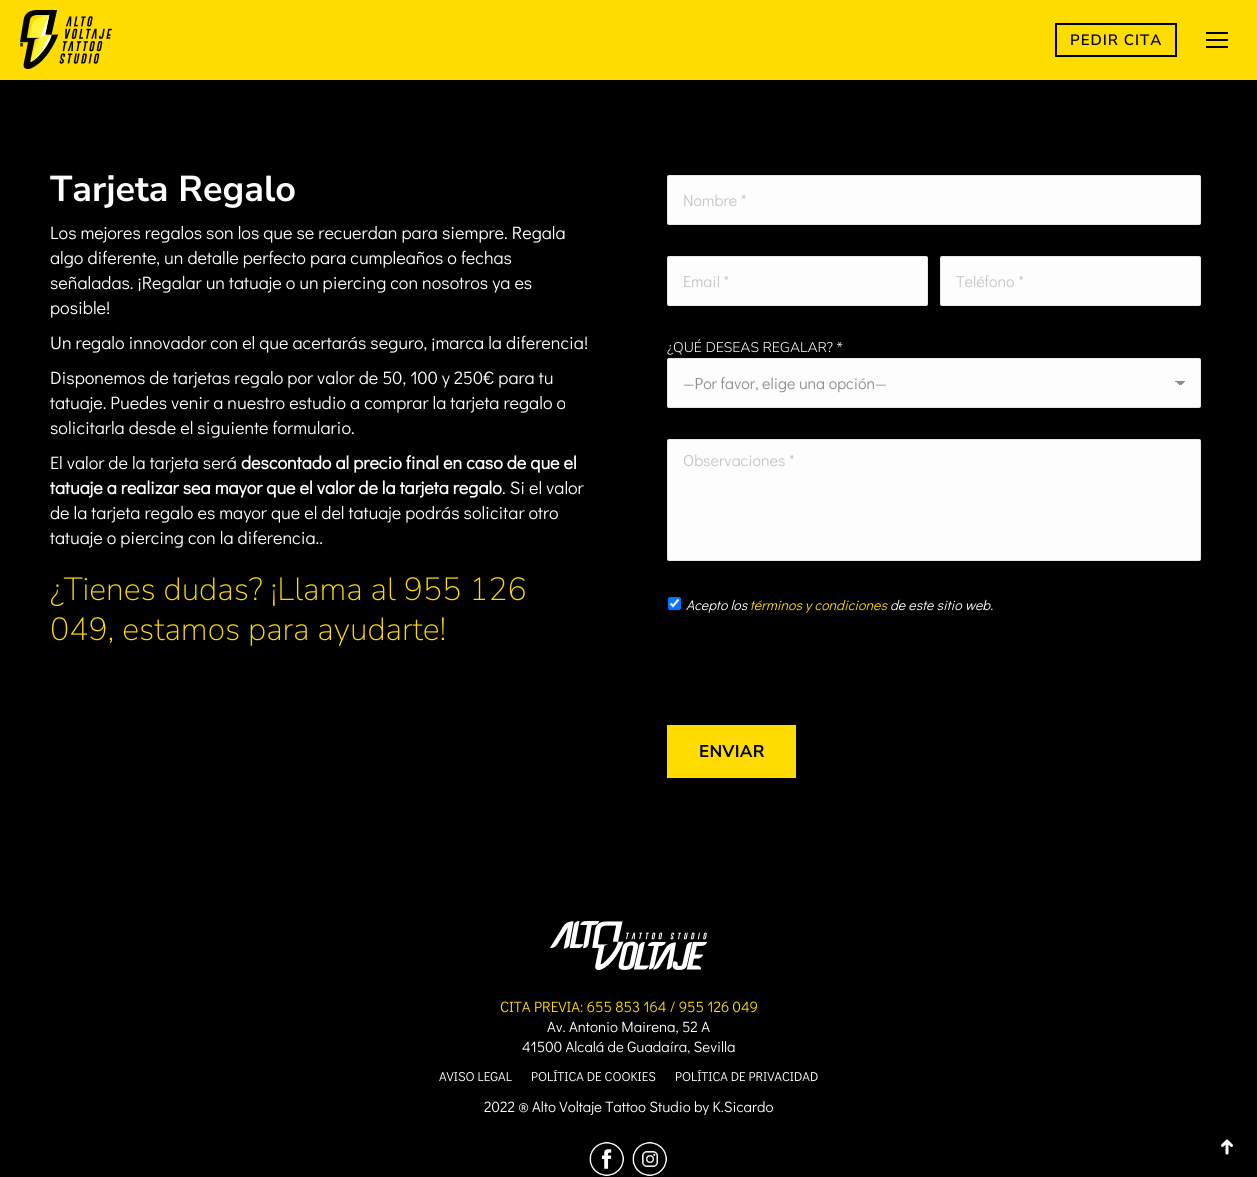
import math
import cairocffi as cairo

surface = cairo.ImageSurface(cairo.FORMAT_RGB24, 1257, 1177)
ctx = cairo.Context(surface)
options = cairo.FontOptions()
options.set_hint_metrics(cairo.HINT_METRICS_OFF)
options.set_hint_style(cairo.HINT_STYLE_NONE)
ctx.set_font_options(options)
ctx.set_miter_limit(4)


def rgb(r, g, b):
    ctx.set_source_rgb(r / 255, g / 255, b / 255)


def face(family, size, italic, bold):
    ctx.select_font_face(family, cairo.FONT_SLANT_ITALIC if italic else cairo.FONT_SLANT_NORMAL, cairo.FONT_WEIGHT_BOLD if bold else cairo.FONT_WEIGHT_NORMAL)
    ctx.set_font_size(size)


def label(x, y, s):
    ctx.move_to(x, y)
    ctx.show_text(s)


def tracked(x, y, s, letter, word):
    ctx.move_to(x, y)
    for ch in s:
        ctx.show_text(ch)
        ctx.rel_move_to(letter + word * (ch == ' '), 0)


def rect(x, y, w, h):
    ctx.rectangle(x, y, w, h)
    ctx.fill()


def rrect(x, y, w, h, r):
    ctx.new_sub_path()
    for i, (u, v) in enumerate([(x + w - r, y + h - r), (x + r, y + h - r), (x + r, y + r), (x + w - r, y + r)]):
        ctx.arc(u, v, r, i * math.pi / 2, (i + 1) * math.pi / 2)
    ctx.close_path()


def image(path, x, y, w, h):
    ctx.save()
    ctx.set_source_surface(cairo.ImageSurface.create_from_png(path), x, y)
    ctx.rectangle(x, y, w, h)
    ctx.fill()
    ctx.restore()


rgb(0, 0, 0)
ctx.paint()
rgb(255, 220, 0)
rect(0, 0, 1257, 80)
image('image0.png', 20, 10, 92, 59)
ctx.rectangle(1056, 24, 120, 32)
rgb(0, 0, 0)
ctx.stroke()
face('Nunito Sans SemiBold', 15, 0, 0)
tracked(1070, 45, 'PEDIR CITA', 1, 0)
rect(1206, 32, 22, 2)
rect(1206, 39, 22, 2)
rect(1206, 46, 22, 2)
face('Nunito Sans', 36, 0, 1)
rgb(255, 255, 255)
label(50, 201, 'Tarjeta Regalo')
face('Didact Gothic', 18, 0, 0)
label(50, 239, 'Los mejores regalos son los que se recuerdan para siempre. Regala')
label(50, 264, 'algo diferente, un detalle perfecto para cumpleaños o fechas')
label(50, 289, 'señaladas. ¡Regalar un tatuaje o un piercing con nosotros ya es')
label(50, 314, 'posible!')
label(50, 349, 'Un regalo innovador con el que acertarás seguro, ¡marca la diferencia!')
label(50, 384, 'Disponemos de tarjetas regalo por valor de 50, 100 y 250€ para tu')
label(50, 409, 'tatuaje. Puedes venir a nuestro estudio a comprar la tarjeta regalo o')
label(50, 434, 'solicitarla desde el siguiente formulario.')
label(50, 469, 'El valor de la tarjeta será')
face('Didact Gothic', 18, 0, 1)
label(241, 469, 'descontado al precio final en caso de que el')
label(50, 494, 'tatuaje a realizar sea mayor que el valor de la tarjeta regalo')
face('Didact Gothic', 18, 0, 0)
label(502, 494, '. Si el valor')
label(50, 519, 'de la tarjeta regalo es mayor que el del tatuaje podrás solicitar otro')
label(50, 544, 'tatuaje o piercing con la diferencia..')
face('Nunito Sans ExtraLight', 32, 0, 0)
rgb(255, 220, 0)
label(50, 600, '¿Tienes dudas? ¡Llama al 955 126')
label(50, 640, '049, estamos para ayudarte!')
rgb(253, 253, 253)
rrect(667, 175, 534, 50, 2)
ctx.fill()
rrect(667.5, 175.5, 533, 49, 1.5)
ctx.set_source_rgba(0.2, 0.2, 0.2, 0.11)
ctx.set_line_width(1)
ctx.stroke()
face('Didact Gothic', 16, 0, 0)
rgb(196, 197, 201)
label(683, 206, 'Nombre *')
rgb(253, 253, 253)
rrect(667, 256, 261, 50, 2)
ctx.fill()
rrect(667.5, 256.5, 260, 49, 1.5)
ctx.set_source_rgba(0.2, 0.2, 0.2, 0.11)
ctx.stroke()
rgb(196, 197, 201)
label(683, 287, 'Email *')
rgb(253, 253, 253)
rrect(940, 256, 261, 50, 2)
ctx.fill()
rrect(940.5, 256.5, 260, 49, 1.5)
ctx.set_source_rgba(0.2, 0.2, 0.2, 0.11)
ctx.stroke()
rgb(196, 197, 201)
label(956, 287, 'Teléfono *')
face('Nunito Sans Light', 14, 0, 0)
rgb(255, 255, 255)
label(667, 352, '¿QUÉ DESEAS REGALAR? *')
rgb(253, 253, 253)
rrect(667, 358, 534, 50, 2)
ctx.fill()
gradient = cairo.LinearGradient(1180, 381, 1185, 386)
gradient.add_color_stop_rgba(0.5, 0.545, 0.553, 0.58, 1)
gradient.add_color_stop_rgba(0.5, 0.992, 0.992, 0.992, 1)
ctx.set_source(gradient)
rect(1180, 381, 5, 4)
gradient = cairo.LinearGradient(1175, 386, 1180, 381)
gradient.add_color_stop_rgba(0.5, 0.992, 0.992, 0.992, 1)
gradient.add_color_stop_rgba(0.5, 0.545, 0.553, 0.58, 1)
ctx.set_source(gradient)
rect(1175, 381, 5, 4)
rrect(667.5, 358.5, 533, 49, 1.5)
ctx.set_source_rgba(0.2, 0.2, 0.2, 0.11)
ctx.stroke()
face('Didact Gothic', 16, 0, 0)
rgb(139, 141, 148)
label(683, 389, '—Por favor, elige una opción—')
rgb(253, 253, 253)
rrect(667, 439, 534, 122, 2)
ctx.fill()
rrect(667.5, 439.5, 533, 121, 1.5)
ctx.set_source_rgba(0.2, 0.2, 0.2, 0.11)
ctx.stroke()
rgb(196, 197, 201)
label(683, 466, 'Observaciones *')
rgb(0, 117, 255)
rrect(668, 597, 13, 13, 2)
ctx.fill()
ctx.new_path()
ctx.move_to(670.5, 603.5)
ctx.line_to(673, 606)
ctx.line_to(678.5, 599.5)
rgb(255, 255, 255)
ctx.set_line_width(2.1)
ctx.stroke()
face('Didact Gothic', 14, 1, 0)
label(686, 610, 'Acepto los')
rgb(255, 220, 0)
label(750, 610, 'términos y condiciones')
rgb(255, 255, 255)
label(890, 610, 'de este sitio web.')
rgb(255, 220, 0)
rect(667, 725, 129, 53)
face('Nunito Sans', 17, 0, 1)
rgb(0, 0, 0)
tracked(699, 757, 'ENVIAR', 0.25, 0)
image('image1.png', 550, 921, 157, 49)
face('Didact Gothic', 15, 0, 0)
rgb(255, 220, 0)
label(500, 1012, 'CITA PREVIA: 655 853 164 / 955 126 049')
rgb(255, 255, 255)
label(547, 1032, 'Av. Antonio Mairena, 52 A')
label(522, 1052, '41500 Alcalá de Guadaíra, Sevilla')
face('Didact Gothic', 13, 0, 0)
label(439, 1081, 'AVISO LEGAL')
label(531, 1081, 'POLÍTICA DE COOKIES')
label(675, 1081, 'POLÍTICA DE PRIVACIDAD')
face('Didact Gothic', 15, 0, 0)
label(484, 1112, '2022 ® Alto Voltaje Tattoo Studio by K.Sicardo')
image('image2.png', 589, 1142, 35, 34)
image('image3.png', 632, 1142, 35, 34)
image('image4.png', 1221, 1139, 12, 16)
surface.write_to_png('render.png')
